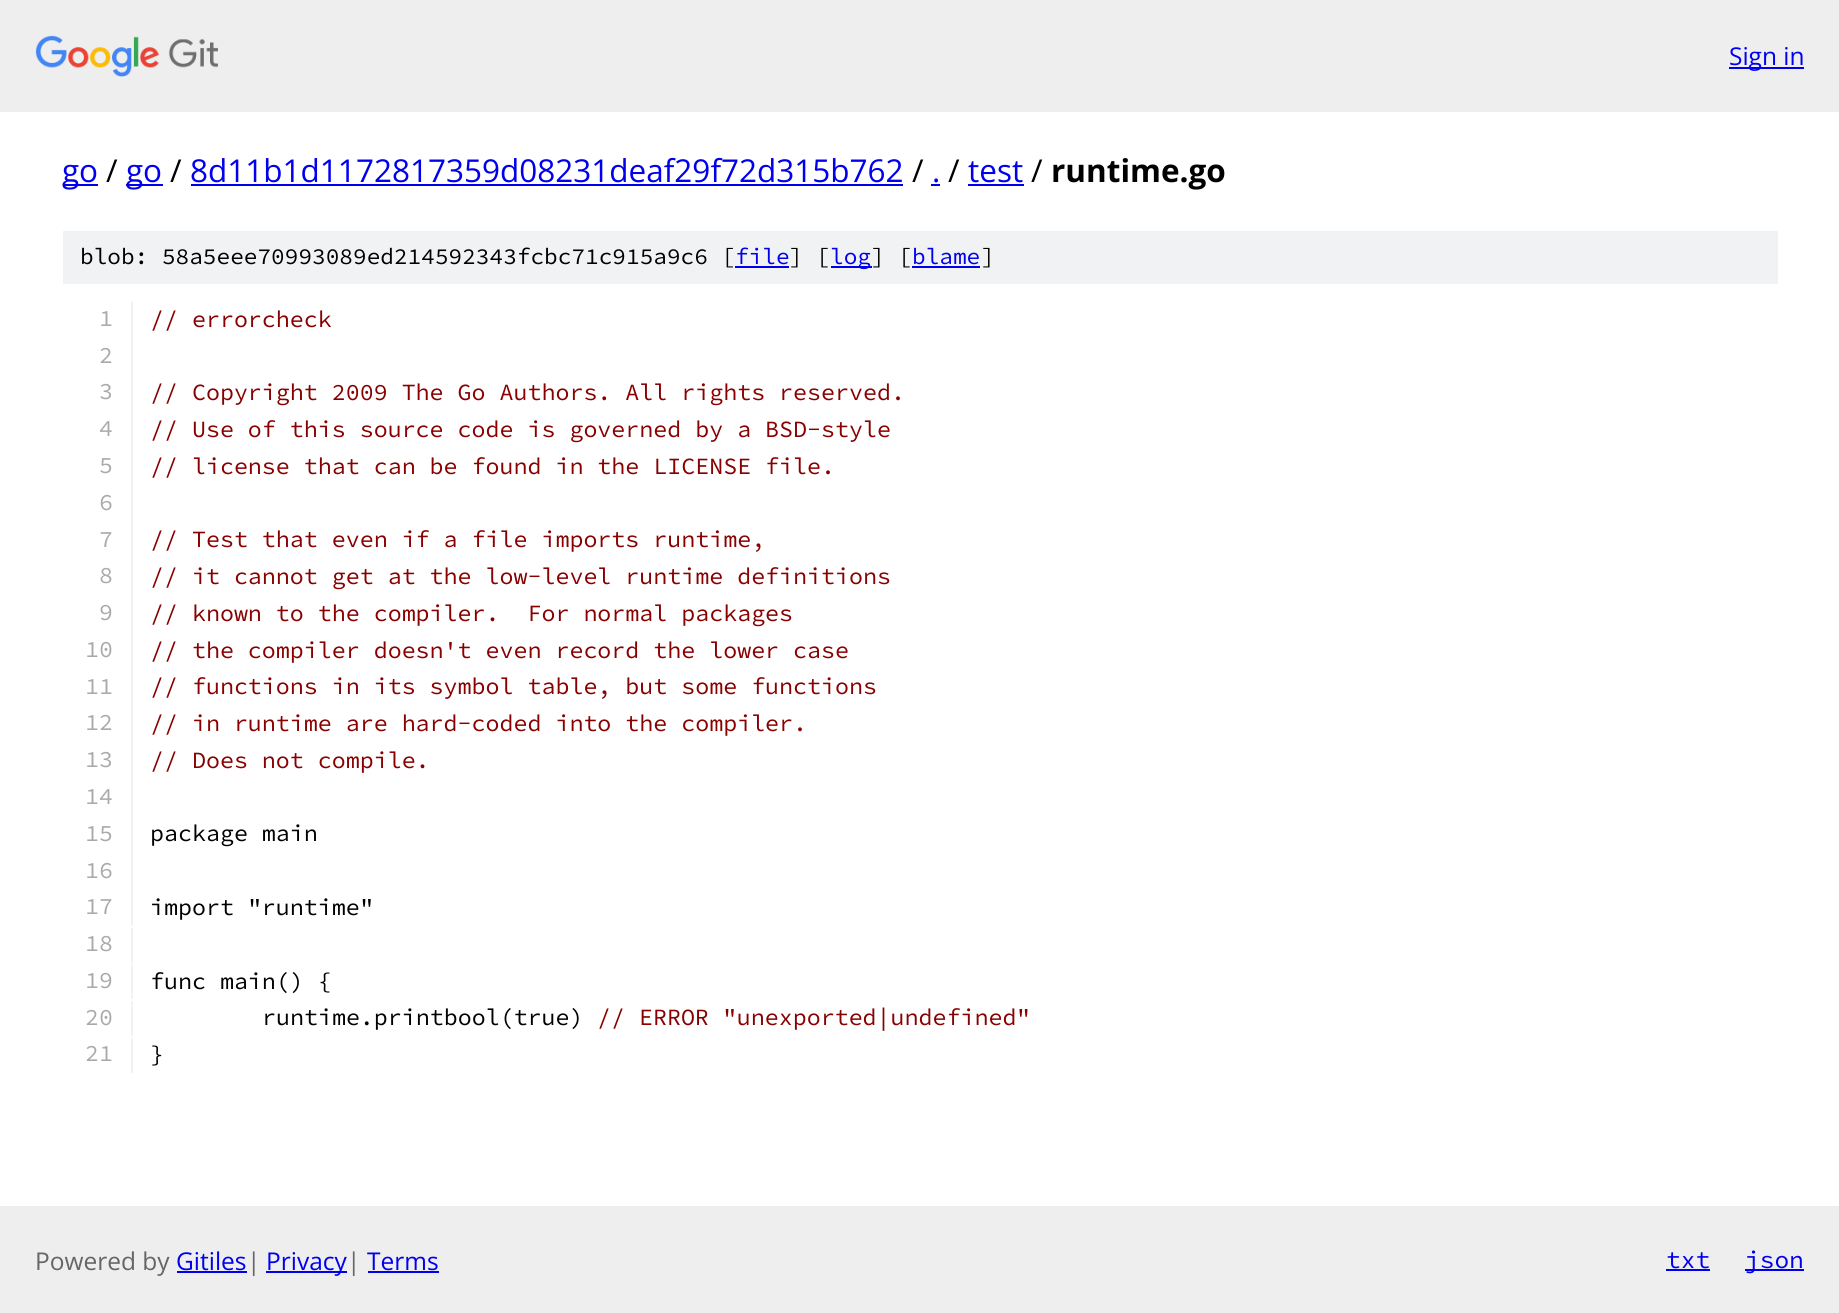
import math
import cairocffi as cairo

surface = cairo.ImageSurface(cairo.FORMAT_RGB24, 1839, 1313)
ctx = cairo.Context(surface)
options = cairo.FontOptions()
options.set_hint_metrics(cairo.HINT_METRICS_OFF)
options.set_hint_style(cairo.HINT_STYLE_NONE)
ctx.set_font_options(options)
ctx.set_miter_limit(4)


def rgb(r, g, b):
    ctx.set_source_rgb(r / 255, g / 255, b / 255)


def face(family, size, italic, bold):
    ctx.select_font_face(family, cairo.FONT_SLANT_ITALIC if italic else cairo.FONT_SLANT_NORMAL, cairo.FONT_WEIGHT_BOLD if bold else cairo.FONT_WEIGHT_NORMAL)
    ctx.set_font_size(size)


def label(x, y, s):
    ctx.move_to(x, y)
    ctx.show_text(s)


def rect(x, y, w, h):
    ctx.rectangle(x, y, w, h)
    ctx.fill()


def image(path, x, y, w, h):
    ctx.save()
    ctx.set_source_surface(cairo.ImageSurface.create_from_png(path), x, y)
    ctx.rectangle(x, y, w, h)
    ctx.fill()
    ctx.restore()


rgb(255, 255, 255)
ctx.paint()
rgb(238, 238, 238)
rect(0, 0, 1839, 112)
image('image0.png', 35, 35, 183, 42)
rgb(0, 0, 238)
rect(1729, 67, 75, 2)
face('Open Sans', 24.5, 0, 0)
label(1729, 65, 'Sign in')
rect(63, 184, 35, 2)
face('Open Sans', 31.5, 0, 0)
label(62, 182, 'go')
rgb(0, 0, 0)
label(106, 182, '/')
rgb(0, 0, 238)
rect(126, 184, 37, 2)
label(126, 182, 'go')
rgb(0, 0, 0)
label(170, 182, '/')
rgb(0, 0, 238)
label(190, 182, '8d11b1d1172817359d08231deaf29f72d315b762')
rect(191, 184, 712, 2)
rgb(0, 0, 0)
label(912, 182, '/')
rgb(0, 0, 238)
label(932, 182, '.')
rect(931, 184, 9, 2)
rgb(0, 0, 0)
label(948, 182, '/')
rgb(0, 0, 238)
label(968, 182, 'test')
rect(968, 184, 56, 2)
rgb(0, 0, 0)
label(1031, 182, '/')
face('Open Sans', 31.5, 0, 1)
label(1051, 182, 'runtime.go')
rgb(241, 242, 243)
rect(63, 231, 1715, 53)
face('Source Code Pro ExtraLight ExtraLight', 22.75, 0, 0)
rgb(0, 0, 0)
label(80, 264, 'blob: 58a5eee70993089ed214592343fcbc71c915a9c6 [')
rgb(0, 0, 238)
label(735, 264, 'file')
rect(735, 266, 54, 2)
rgb(0, 0, 0)
label(789, 264, '] [')
rgb(0, 0, 238)
rect(831, 266, 41, 2)
label(830, 264, 'log')
rgb(0, 0, 0)
label(871, 264, '] [')
rgb(0, 0, 238)
label(912, 264, 'blame')
rect(912, 266, 68, 2)
rgb(0, 0, 0)
label(981, 264, ']')
rgb(241, 242, 243)
rect(131, 301, 2, 625)
face('Source Code Pro ExtraLight ExtraLight', 23.3, 0, 0)
rgb(170, 170, 170)
label(99, 326, '1')
rgb(136, 0, 0)
label(150, 327, '// errorcheck')
rgb(170, 170, 170)
label(99, 363, '2')
label(99, 399, '3')
rgb(136, 0, 0)
label(150, 400, '// Copyright 2009 The Go Authors. All rights reserved.')
rgb(170, 170, 170)
label(99, 436, '4')
rgb(136, 0, 0)
label(150, 437, '// Use of this source code is governed by a BSD-style')
rgb(170, 170, 170)
label(99, 473, '5')
rgb(136, 0, 0)
label(150, 474, '// license that can be found in the LICENSE file.')
rgb(170, 170, 170)
label(99, 510, '6')
label(99, 547, '7')
rgb(136, 0, 0)
label(150, 547, '// Test that even if a file imports runtime,')
rgb(170, 170, 170)
label(99, 583, '8')
rgb(136, 0, 0)
label(150, 584, '// it cannot get at the low-level runtime definitions')
rgb(170, 170, 170)
label(99, 620, '9')
rgb(136, 0, 0)
label(150, 621, '// known to the compiler.  For normal packages')
rgb(170, 170, 170)
label(85, 657, '10')
rgb(136, 0, 0)
label(150, 658, '// the compiler doesn\'t even record the lower case')
rgb(170, 170, 170)
label(85, 694, '11')
rgb(136, 0, 0)
label(150, 694, '// functions in its symbol table, but some functions')
rgb(170, 170, 170)
label(85, 730, '12')
rgb(136, 0, 0)
label(150, 731, '// in runtime are hard-coded into the compiler.')
rgb(170, 170, 170)
label(85, 767, '13')
rgb(136, 0, 0)
label(150, 768, '// Does not compile.')
rgb(170, 170, 170)
label(85, 804, '14')
label(85, 841, '15')
rgb(0, 0, 0)
label(150, 841, 'package main')
rgb(170, 170, 170)
label(85, 878, '16')
label(85, 914, '17')
rgb(0, 0, 0)
label(150, 915, 'import "runtime"')
rgb(241, 242, 243)
rect(131, 928, 2, 35)
rgb(170, 170, 170)
label(85, 951, '18')
rgb(241, 242, 243)
rect(131, 964, 2, 35)
rgb(170, 170, 170)
label(85, 988, '19')
rgb(0, 0, 0)
label(150, 989, 'func main() {')
rgb(241, 242, 243)
rect(131, 1001, 2, 35)
rgb(170, 170, 170)
label(85, 1025, '20')
rgb(0, 0, 0)
label(262, 1025, 'runtime.printbool(true)')
rgb(136, 0, 0)
label(597, 1025, '// ERROR "unexported|undefined"')
rgb(241, 242, 243)
rect(131, 1038, 2, 35)
rgb(170, 170, 170)
label(85, 1061, '21')
rgb(0, 0, 0)
label(150, 1062, '}')
rgb(238, 238, 238)
rect(0, 1206, 1839, 107)
face('Open Sans', 24.5, 0, 0)
rgb(102, 102, 102)
label(35, 1270, 'Powered by')
rgb(0, 0, 238)
label(176, 1270, 'Gitiles')
rect(177, 1271, 70, 2)
rgb(102, 102, 102)
label(247, 1270, '|')
rgb(0, 0, 238)
rect(266, 1271, 81, 2)
label(266, 1270, 'Privacy')
rgb(102, 102, 102)
label(347, 1270, '|')
rgb(0, 0, 238)
label(367, 1270, 'Terms')
rect(368, 1271, 71, 2)
face('Source Code Pro ExtraLight ExtraLight', 24.5, 0, 0)
label(1666, 1268, 'txt')
rect(1666, 1269, 44, 2)
rect(1745, 1269, 59, 2)
label(1745, 1268, 'json')
surface.write_to_png('render.png')
